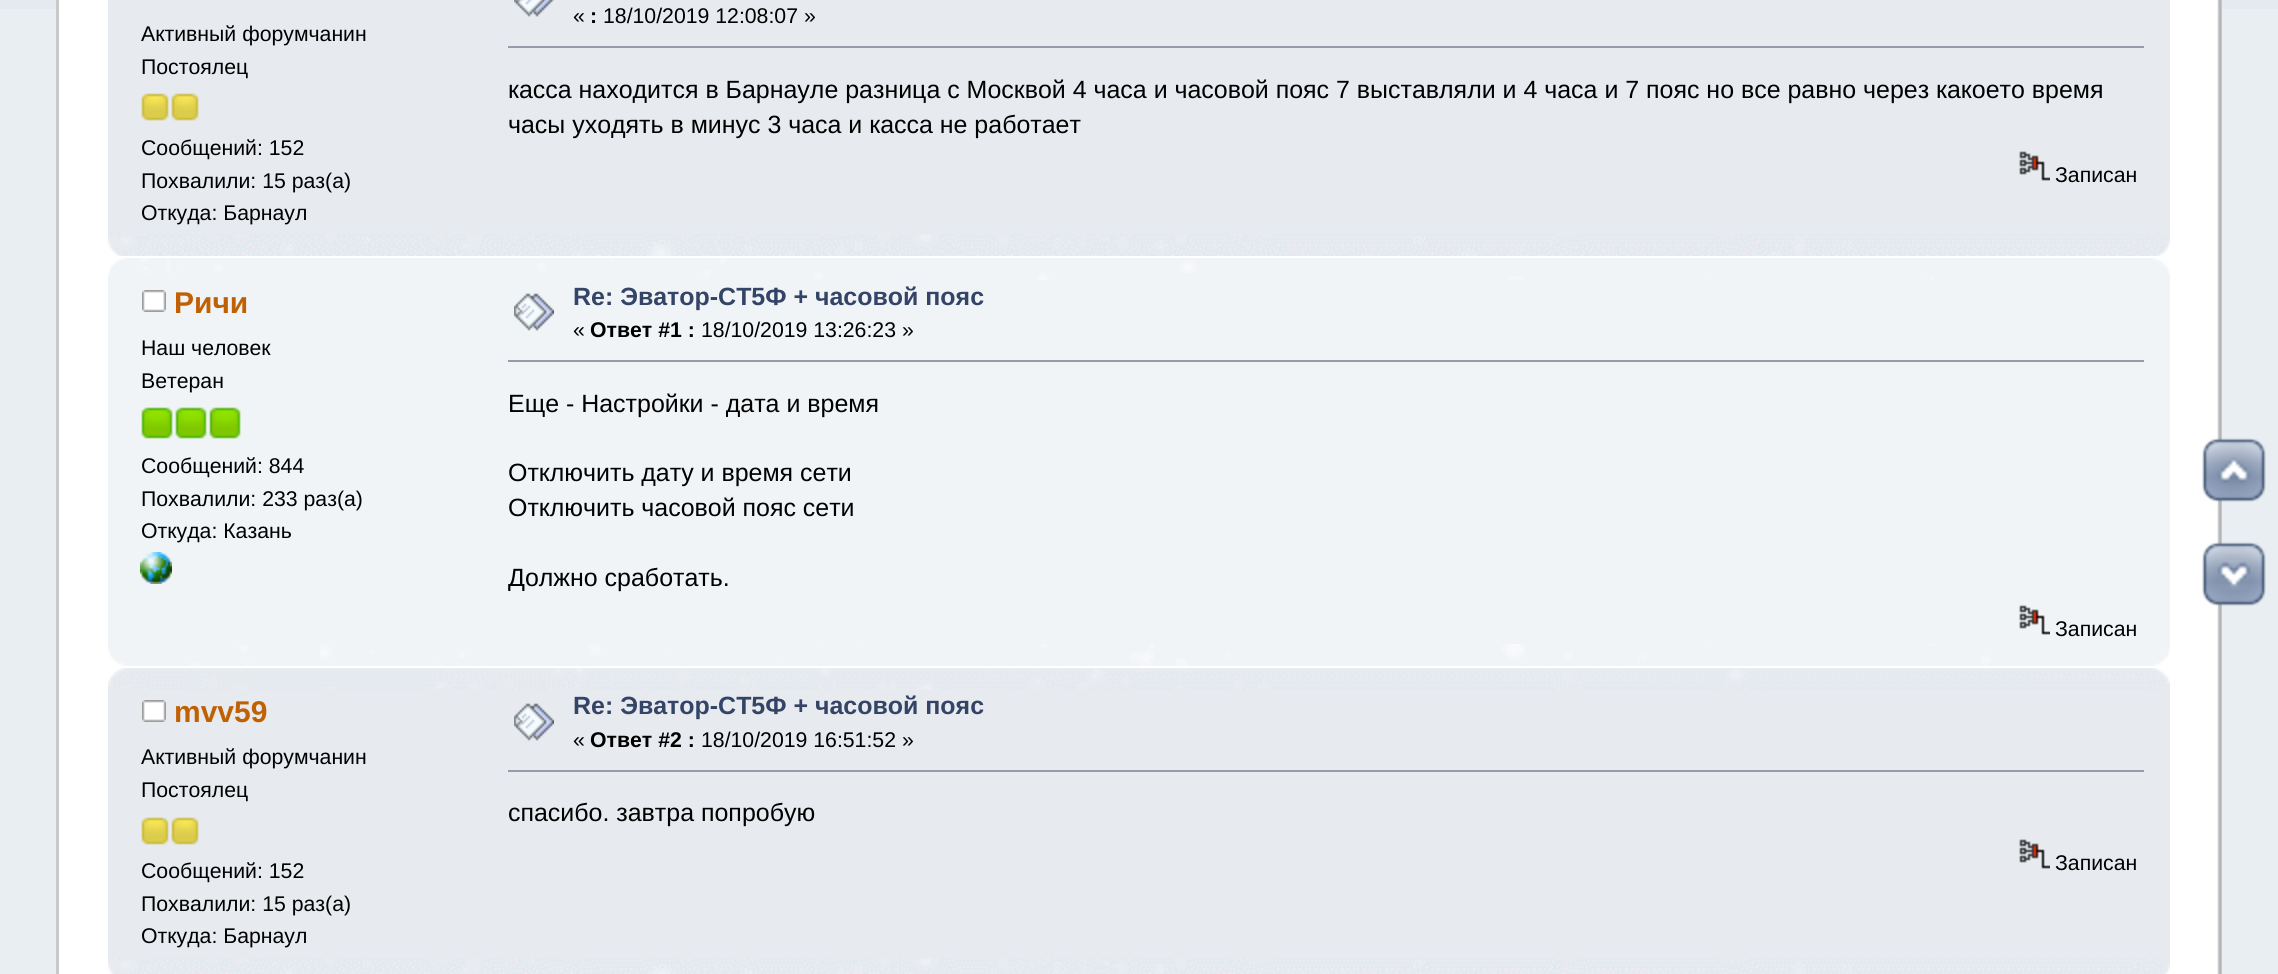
import math
import cairocffi as cairo

surface = cairo.ImageSurface(cairo.FORMAT_RGB24, 2278, 974)
ctx = cairo.Context(surface)
options = cairo.FontOptions()
options.set_hint_metrics(cairo.HINT_METRICS_OFF)
options.set_hint_style(cairo.HINT_STYLE_NONE)
ctx.set_font_options(options)
ctx.set_miter_limit(4)


def rgb(r, g, b):
    ctx.set_source_rgb(r / 255, g / 255, b / 255)


def face(family, size, italic, bold):
    ctx.select_font_face(family, cairo.FONT_SLANT_ITALIC if italic else cairo.FONT_SLANT_NORMAL, cairo.FONT_WEIGHT_BOLD if bold else cairo.FONT_WEIGHT_NORMAL)
    ctx.set_font_size(size)


def label(x, y, s):
    ctx.move_to(x, y)
    ctx.show_text(s)


def rect(x, y, w, h):
    ctx.rectangle(x, y, w, h)
    ctx.fill()


def image(path, x, y, w, h):
    ctx.save()
    ctx.set_source_surface(cairo.ImageSurface.create_from_png(path), x, y)
    ctx.rectangle(x, y, w, h)
    ctx.fill()
    ctx.restore()


rgb(233, 238, 242)
ctx.paint()
rgb(228, 234, 239)
rect(0, 0, 2278, 9)
rgb(255, 255, 255)
rect(59, 0, 2158, 974)
rgb(201, 201, 201)
rect(56, 0, 3, 974)
image('image0.png', 2217, 0, 5, 974)
rgb(231, 234, 239)
rect(108, 0, 2062, 234)
face('Liberation Sans', 21.25, 0, 0)
rgb(0, 0, 0)
label(141, 41, 'Активный форумчанин')
label(141, 74, 'Постоялец')
image('image1.png', 141, 93, 28, 28)
image('image1.png', 171, 93, 28, 28)
label(141, 155, 'Сообщений: 152')
label(141, 188, 'Похвалили: 15 раз(а)')
label(141, 220, 'Откуда: Барнаул')
image('image2.png', 514, 0, 40, 17)
label(573, 23, '«')
face('Liberation Sans', 21.25, 0, 1)
label(590, 23, ':')
face('Liberation Sans', 21.25, 0, 0)
label(603, 23, '18/10/2019 12:08:07 »')
rgb(153, 153, 170)
rect(508, 46, 1636, 2)
face('Liberation Sans', 24.95, 0, 0)
rgb(0, 0, 0)
label(508, 98, 'касса находится в Барнауле разница с Москвой 4 часа и часовой пояс 7 выставляли и 4 часа и 7 пояс но все равно через какоето время')
label(508, 133, 'часы уходять в минус 3 часа и касса не работает')
image('image3.png', 2019, 151, 31, 30)
face('Liberation Sans', 21.25, 0, 0)
label(2055, 182, 'Записан')
image('image4.png', 108, 234, 40, 22)
image('image5.png', 148, 234, 2022, 22)
rgb(240, 244, 247)
rect(108, 275, 2062, 370)
image('image6.png', 108, 258, 62, 17)
image('image7.png', 170, 258, 2000, 22)
image('image8.png', 142, 290, 24, 22)
face('Liberation Sans', 30, 0, 1)
rgb(192, 96, 2)
label(174, 313, 'Ричи')
face('Liberation Sans', 21.25, 0, 0)
rgb(0, 0, 0)
label(141, 355, 'Наш человек')
label(141, 388, 'Ветеран')
image('image9.png', 141, 407, 32, 32)
image('image9.png', 175, 407, 32, 32)
image('image9.png', 209, 407, 32, 32)
label(141, 473, 'Сообщений: 844')
label(141, 506, 'Похвалили: 233 раз(а)')
label(141, 538, 'Откуда: Казань')
image('image10.png', 140, 552, 32, 32)
image('image11.png', 514, 293, 40, 38)
face('Liberation Sans', 24.95, 0, 1)
rgb(51, 68, 102)
label(573, 305, 'Re: Эватор-СТ5Ф + часовой пояс')
face('Liberation Sans', 21.25, 0, 0)
rgb(0, 0, 0)
label(573, 337, '«')
face('Liberation Sans', 21.25, 0, 1)
label(590, 337, 'Ответ #1 :')
face('Liberation Sans', 21.25, 0, 0)
label(701, 337, '18/10/2019 13:26:23 »')
rgb(153, 153, 170)
rect(508, 360, 1636, 2)
face('Liberation Sans', 24.95, 0, 0)
rgb(0, 0, 0)
label(508, 412, 'Еще - Настройки - дата и время')
label(508, 481, 'Отключить дату и время сети')
label(508, 516, 'Отключить часовой пояс сети')
label(508, 586, 'Должно сработать.')
image('image12.png', 2019, 605, 31, 30)
face('Liberation Sans', 21.25, 0, 0)
label(2055, 636, 'Записан')
image('image13.png', 108, 645, 212, 21)
image('image14.png', 320, 644, 1850, 22)
rgb(231, 234, 239)
rect(108, 690, 2062, 268)
image('image15.png', 108, 668, 40, 22)
image('image16.png', 148, 668, 2022, 22)
image('image17.png', 142, 700, 24, 22)
face('Liberation Sans', 30, 0, 1)
rgb(192, 96, 2)
label(174, 722, 'mvv59')
face('Liberation Sans', 21.25, 0, 0)
rgb(0, 0, 0)
label(141, 764, 'Активный форумчанин')
label(141, 797, 'Постоялец')
image('image1.png', 141, 817, 28, 28)
image('image1.png', 171, 817, 28, 28)
label(141, 878, 'Сообщений: 152')
label(141, 911, 'Похвалили: 15 раз(а)')
label(141, 943, 'Откуда: Барнаул')
image('image18.png', 514, 703, 40, 38)
face('Liberation Sans', 24.95, 0, 1)
rgb(51, 68, 102)
label(573, 714, 'Re: Эватор-СТ5Ф + часовой пояс')
face('Liberation Sans', 21.25, 0, 0)
rgb(0, 0, 0)
label(573, 747, '«')
face('Liberation Sans', 21.25, 0, 1)
label(590, 747, 'Ответ #2 :')
face('Liberation Sans', 21.25, 0, 0)
label(701, 747, '18/10/2019 16:51:52 »')
rgb(153, 153, 170)
rect(508, 770, 1636, 2)
face('Liberation Sans', 24.95, 0, 0)
rgb(0, 0, 0)
label(508, 821, 'спасибо. завтра попробую')
image('image3.png', 2019, 839, 31, 30)
face('Liberation Sans', 21.25, 0, 0)
label(2055, 870, 'Записан')
image('image19.png', 108, 958, 40, 16)
image('image20.png', 148, 958, 2022, 16)
image('image21.png', 2202, 439, 64, 63)
image('image22.png', 2202, 438, 64, 64)
image('image23.png', 2202, 543, 64, 63)
image('image24.png', 2202, 542, 64, 64)
surface.write_to_png('render.png')
